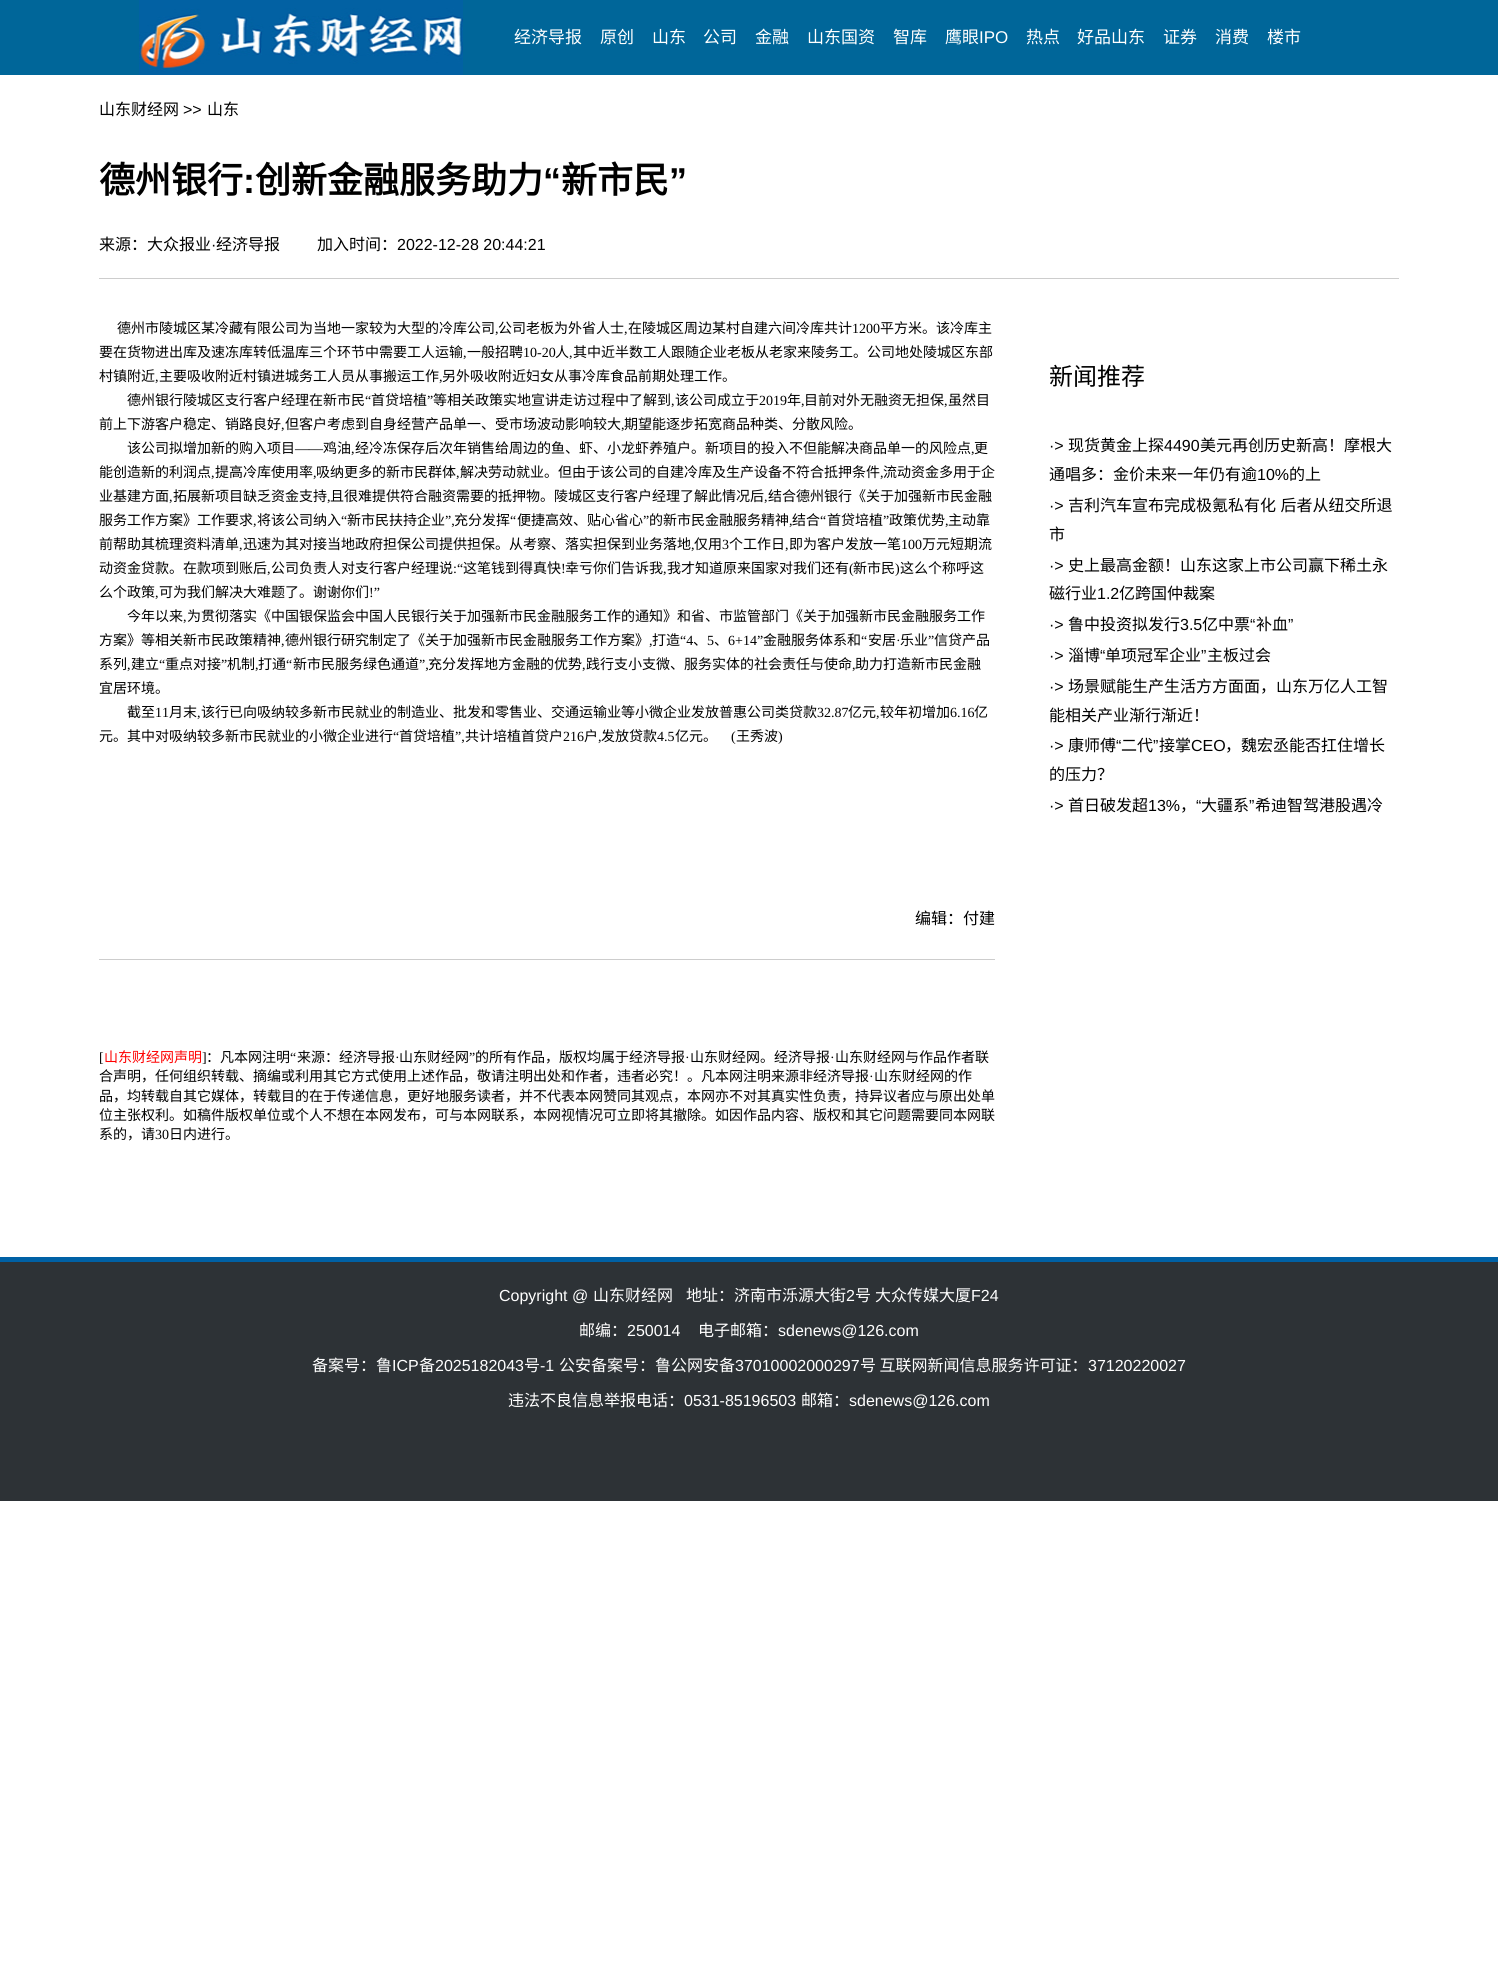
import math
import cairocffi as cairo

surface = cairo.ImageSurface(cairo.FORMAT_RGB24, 1498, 1979)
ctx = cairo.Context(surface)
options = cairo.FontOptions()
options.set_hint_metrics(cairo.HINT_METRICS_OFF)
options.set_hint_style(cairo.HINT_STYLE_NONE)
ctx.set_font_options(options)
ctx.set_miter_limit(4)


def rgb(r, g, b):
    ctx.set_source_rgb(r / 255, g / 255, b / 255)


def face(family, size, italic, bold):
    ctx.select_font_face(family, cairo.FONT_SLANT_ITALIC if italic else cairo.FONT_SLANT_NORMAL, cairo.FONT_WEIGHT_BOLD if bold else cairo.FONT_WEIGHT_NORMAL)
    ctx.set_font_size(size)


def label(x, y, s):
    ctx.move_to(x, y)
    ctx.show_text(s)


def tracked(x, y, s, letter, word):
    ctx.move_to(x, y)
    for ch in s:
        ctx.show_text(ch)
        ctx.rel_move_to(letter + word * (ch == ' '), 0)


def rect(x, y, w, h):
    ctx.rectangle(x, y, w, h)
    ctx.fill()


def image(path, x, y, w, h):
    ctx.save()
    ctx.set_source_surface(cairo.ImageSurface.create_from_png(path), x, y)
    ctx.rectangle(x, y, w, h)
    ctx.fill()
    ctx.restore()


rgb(255, 255, 255)
ctx.paint()
rgb(0, 102, 153)
rect(0, 0, 1498, 75)
image('image0.png', 139, 0, 324, 75)
face('Noto Sans CJK SC', 17, 0, 0)
rgb(255, 255, 255)
label(514, 43, '经济导报')
label(600, 43, '原创')
label(652, 43, '山东')
label(703, 43, '公司')
label(755, 43, '金融')
label(807, 43, '山东国资')
label(893, 43, '智库')
label(945, 43, '鹰眼')
face('Liberation Sans', 17, 0, 0)
label(979, 43, 'IPO')
face('Noto Sans CJK SC', 17, 0, 0)
label(1026, 43, '热点')
label(1077, 43, '好品山东')
label(1163, 43, '证券')
label(1215, 43, '消费')
label(1267, 43, '楼市')
face('Noto Sans CJK SC', 16, 0, 0)
rgb(0, 0, 0)
label(99, 115, '山东财经网')
face('Liberation Sans', 16, 0, 0)
label(183, 115, '>>')
face('Noto Sans CJK SC', 16, 0, 0)
label(207, 115, '山东')
face('Noto Sans CJK SC', 36, 0, 1)
label(99, 193, '德州银行')
face('Liberation Sans', 36, 0, 1)
label(243, 193, ':')
face('Noto Sans CJK SC', 36, 0, 1)
label(255, 193, '创新金融服务助力')
face('Liberation Sans', 36, 0, 1)
label(543, 193, '“')
face('Noto Sans CJK SC', 36, 0, 1)
label(561, 193, '新市民')
face('Liberation Sans', 36, 0, 1)
label(669, 193, '”')
face('Noto Sans CJK SC', 16, 0, 0)
label(99, 250, '来源：大众报业')
face('Liberation Sans', 16, 0, 0)
label(211, 250, '·')
face('Noto Sans CJK SC', 16, 0, 0)
label(216, 250, '经济导报')
label(317, 250, '加入时间：')
face('Liberation Sans', 16, 0, 0)
label(397, 250, '2022-12-28 20:44:21')
rgb(205, 205, 205)
rect(99, 278, 1300, 1)
face('Noto Sans CJK SC', 14, 0, 0)
rgb(0, 0, 0)
label(117, 333, '德州市陵城区某冷藏有限公司为当地一家较为大型的冷库公司')
face('Liberation Serif', 14, 0, 0)
label(495, 333, ',')
face('Noto Sans CJK SC', 14, 0, 0)
label(498, 333, '公司老板为外省人士')
face('Liberation Serif', 14, 0, 0)
label(624, 333, ',')
face('Noto Sans CJK SC', 14, 0, 0)
label(628, 333, '在陵城区周边某村自建六间冷库共计')
face('Liberation Serif', 14, 0, 0)
label(852, 333, '1200')
face('Noto Sans CJK SC', 14, 0, 0)
label(880, 333, '平方米。该冷库主')
label(99, 357, '要在货物进出库及速冻库转低温库三个环节中需要工人运输')
face('Liberation Serif', 14, 0, 0)
label(463, 357, ',')
face('Noto Sans CJK SC', 14, 0, 0)
label(467, 357, '一般招聘')
face('Liberation Serif', 14, 0, 0)
label(523, 357, '10-20')
face('Noto Sans CJK SC', 14, 0, 0)
label(555, 357, '人')
face('Liberation Serif', 14, 0, 0)
label(569, 357, ',')
face('Noto Sans CJK SC', 14, 0, 0)
label(573, 357, '其中近半数工人跟随企业老板从老家来陵务工。公司地处陵城区东部')
label(99, 381, '村镇附近')
face('Liberation Serif', 14, 0, 0)
label(155, 381, ',')
face('Noto Sans CJK SC', 14, 0, 0)
label(159, 381, '主要吸收附近村镇进城务工人员从事搬运工作')
face('Liberation Serif', 14, 0, 0)
label(439, 381, ',')
face('Noto Sans CJK SC', 14, 0, 0)
label(442, 381, '另外吸收附近妇女从事冷库食品前期处理工作。')
label(127, 405, '德州银行陵城区支行客户经理在新市民')
face('Liberation Serif', 14, 0, 0)
label(365, 405, '“')
face('Noto Sans CJK SC', 14, 0, 0)
label(371, 405, '首贷培植')
face('Liberation Serif', 14, 0, 0)
label(427, 405, '”')
face('Noto Sans CJK SC', 14, 0, 0)
label(433, 405, '等相关政策实地宣讲走访过程中了解到')
face('Liberation Serif', 14, 0, 0)
label(671, 405, ',')
face('Noto Sans CJK SC', 14, 0, 0)
label(675, 405, '该公司成立于')
face('Liberation Serif', 14, 0, 0)
label(759, 405, '2019')
face('Noto Sans CJK SC', 14, 0, 0)
label(787, 405, '年')
face('Liberation Serif', 14, 0, 0)
label(801, 405, ',')
face('Noto Sans CJK SC', 14, 0, 0)
label(804, 405, '目前对外无融资无担保')
face('Liberation Serif', 14, 0, 0)
label(944, 405, ',')
face('Noto Sans CJK SC', 14, 0, 0)
label(948, 405, '虽然目')
label(99, 429, '前上下游客户稳定、销路良好')
face('Liberation Serif', 14, 0, 0)
label(281, 429, ',')
face('Noto Sans CJK SC', 14, 0, 0)
label(285, 429, '但客户考虑到自身经营产品单一、受市场波动影响较大')
face('Liberation Serif', 14, 0, 0)
label(621, 429, ',')
face('Noto Sans CJK SC', 14, 0, 0)
label(624, 429, '期望能逐步拓宽商品种类、分散风险。')
label(127, 453, '该公司拟增加新的购入项目')
face('Liberation Serif', 14, 0, 0)
label(295, 453, '——')
face('Noto Sans CJK SC', 14, 0, 0)
label(323, 453, '鸡油')
label(355, 453, '经冷冻保存后次年销售给周边的鱼、虾、小龙虾养殖户。新项目的投入不但能解决商品单一的风险点')
label(974, 453, '更')
face('Liberation Serif', 14, 0, 0)
label(351, 453, ',')
label(971, 453, ',')
face('Noto Sans CJK SC', 14, 0, 0)
label(99, 477, '能创造新的利润点')
face('Liberation Serif', 14, 0, 0)
label(211, 477, ',')
face('Noto Sans CJK SC', 14, 0, 0)
label(215, 477, '提高冷库使用率')
face('Liberation Serif', 14, 0, 0)
label(313, 477, ',')
face('Noto Sans CJK SC', 14, 0, 0)
label(316, 477, '吸纳更多的新市民群体')
face('Liberation Serif', 14, 0, 0)
label(456, 477, ',')
face('Noto Sans CJK SC', 14, 0, 0)
label(460, 477, '解决劳动就业。但由于该公司的自建冷库及生产设备不符合抵押条件')
face('Liberation Serif', 14, 0, 0)
label(880, 477, ',')
face('Noto Sans CJK SC', 14, 0, 0)
label(883, 477, '流动资金多用于企')
label(99, 501, '业基建方面')
face('Liberation Serif', 14, 0, 0)
label(169, 501, ',')
face('Noto Sans CJK SC', 14, 0, 0)
label(173, 501, '拓展新项目缺乏资金支持')
face('Liberation Serif', 14, 0, 0)
label(327, 501, ',')
face('Noto Sans CJK SC', 14, 0, 0)
label(330, 501, '且很难提供符合融资需要的抵押物。陵城区支行客户经理了解此情况后')
face('Liberation Serif', 14, 0, 0)
label(764, 501, ',')
face('Noto Sans CJK SC', 14, 0, 0)
label(768, 501, '结合德州银行《关于加强新市民金融')
label(99, 525, '服务工作方案》工作要求')
label(257, 525, '将该公司纳入')
face('Liberation Serif', 14, 0, 0)
label(341, 525, '“')
face('Noto Sans CJK SC', 14, 0, 0)
label(347, 525, '新市民扶持企业')
face('Liberation Serif', 14, 0, 0)
label(445, 525, '”,')
face('Noto Sans CJK SC', 14, 0, 0)
label(454, 525, '充分发挥')
face('Liberation Serif', 14, 0, 0)
label(510, 525, '“')
face('Noto Sans CJK SC', 14, 0, 0)
label(517, 525, '便捷高效、贴心省心')
face('Liberation Serif', 14, 0, 0)
label(643, 525, '”')
face('Noto Sans CJK SC', 14, 0, 0)
label(649, 525, '的新市民金融服务精神')
label(792, 525, '结合')
face('Liberation Serif', 14, 0, 0)
label(820, 525, '“')
face('Noto Sans CJK SC', 14, 0, 0)
label(827, 525, '首贷培植')
face('Liberation Serif', 14, 0, 0)
label(883, 525, '”')
face('Noto Sans CJK SC', 14, 0, 0)
label(889, 525, '政策优势')
label(948, 525, '主动靠')
face('Liberation Serif', 14, 0, 0)
label(253, 525, ',')
label(789, 525, ',')
label(945, 525, ',')
face('Noto Sans CJK SC', 14, 0, 0)
label(99, 549, '前帮助其梳理资料清单')
face('Liberation Serif', 14, 0, 0)
label(239, 549, ',')
face('Noto Sans CJK SC', 14, 0, 0)
label(243, 549, '迅速为其对接当地政府担保公司提供担保。从考察、落实担保到业务落地')
face('Liberation Serif', 14, 0, 0)
label(691, 549, ',')
face('Noto Sans CJK SC', 14, 0, 0)
label(694, 549, '仅用')
face('Liberation Serif', 14, 0, 0)
label(722, 549, '3')
face('Noto Sans CJK SC', 14, 0, 0)
label(729, 549, '个工作日')
face('Liberation Serif', 14, 0, 0)
label(785, 549, ',')
face('Noto Sans CJK SC', 14, 0, 0)
label(789, 549, '即为客户发放一笔')
face('Liberation Serif', 14, 0, 0)
label(901, 549, '100')
face('Noto Sans CJK SC', 14, 0, 0)
label(922, 549, '万元短期流')
label(99, 573, '动资金贷款。在款项到账后')
face('Liberation Serif', 14, 0, 0)
label(267, 573, ',')
face('Noto Sans CJK SC', 14, 0, 0)
label(271, 573, '公司负责人对支行客户经理说')
face('Liberation Serif', 14, 0, 0)
label(453, 573, ':“')
face('Noto Sans CJK SC', 14, 0, 0)
label(463, 573, '这笔钱到得真快')
face('Liberation Serif', 14, 0, 0)
label(561, 573, '!')
face('Noto Sans CJK SC', 14, 0, 0)
label(565, 573, '幸亏你们告诉我')
face('Liberation Serif', 14, 0, 0)
label(663, 573, ',')
face('Noto Sans CJK SC', 14, 0, 0)
label(667, 573, '我才知道原来国家对我们还有')
face('Liberation Serif', 14, 0, 0)
label(849, 573, '(')
face('Noto Sans CJK SC', 14, 0, 0)
label(853, 573, '新市民')
face('Liberation Serif', 14, 0, 0)
label(895, 573, ')')
face('Noto Sans CJK SC', 14, 0, 0)
label(900, 573, '这么个称呼这')
label(99, 597, '么个政策')
face('Liberation Serif', 14, 0, 0)
label(155, 597, ',')
face('Noto Sans CJK SC', 14, 0, 0)
label(159, 597, '可为我们解决大难题了。谢谢你们')
face('Liberation Serif', 14, 0, 0)
label(369, 597, '!”')
face('Noto Sans CJK SC', 14, 0, 0)
label(127, 621, '今年以来')
face('Liberation Serif', 14, 0, 0)
label(183, 621, ',')
face('Noto Sans CJK SC', 14, 0, 0)
label(187, 621, '为贯彻落实《中国银保监会中国人民银行关于加强新市民金融服务工作的通知》和省、市监管部门《关于加强新市民金融服务工作')
label(99, 645, '方案》等相关新市民政策精神')
label(285, 645, '德州银行研究制定了《关于加强新市民金融服务工作方案》')
label(652, 645, '打造')
face('Liberation Serif', 14, 0, 0)
label(680, 645, '“4')
label(707, 645, '5')
label(728, 645, '6+14”')
face('Noto Sans CJK SC', 14, 0, 0)
label(763, 645, '金融服务体系和')
face('Liberation Serif', 14, 0, 0)
label(861, 645, '“')
face('Noto Sans CJK SC', 14, 0, 0)
label(868, 645, '安居')
label(900, 645, '乐业')
face('Liberation Serif', 14, 0, 0)
label(928, 645, '”')
face('Noto Sans CJK SC', 14, 0, 0)
label(934, 645, '信贷产品')
face('Liberation Serif', 14, 0, 0)
label(896, 645, '·')
label(281, 645, ',')
label(649, 645, ',')
face('Noto Sans CJK SC', 14, 0, 0)
label(693, 645, '、')
label(714, 645, '、')
label(99, 669, '系列')
face('Liberation Serif', 14, 0, 0)
label(127, 669, ',')
face('Noto Sans CJK SC', 14, 0, 0)
label(131, 669, '建立')
face('Liberation Serif', 14, 0, 0)
label(159, 669, '“')
face('Noto Sans CJK SC', 14, 0, 0)
label(165, 669, '重点对接')
face('Liberation Serif', 14, 0, 0)
label(221, 669, '”')
face('Noto Sans CJK SC', 14, 0, 0)
label(227, 669, '机制')
face('Liberation Serif', 14, 0, 0)
label(255, 669, ',')
face('Noto Sans CJK SC', 14, 0, 0)
label(258, 669, '打通')
face('Liberation Serif', 14, 0, 0)
label(286, 669, '“')
face('Noto Sans CJK SC', 14, 0, 0)
label(293, 669, '新市民服务绿色通道')
face('Liberation Serif', 14, 0, 0)
label(419, 669, '”,')
face('Noto Sans CJK SC', 14, 0, 0)
label(428, 669, '充分发挥地方金融的优势')
face('Liberation Serif', 14, 0, 0)
label(582, 669, ',')
face('Noto Sans CJK SC', 14, 0, 0)
label(586, 669, '践行支小支微、服务实体的社会责任与使命')
face('Liberation Serif', 14, 0, 0)
label(852, 669, ',')
face('Noto Sans CJK SC', 14, 0, 0)
label(855, 669, '助力打造新市民金融')
label(99, 693, '宜居环境。')
label(127, 717, '截至')
face('Liberation Serif', 14, 0, 0)
label(155, 717, '11')
face('Noto Sans CJK SC', 14, 0, 0)
label(169, 717, '月末')
face('Liberation Serif', 14, 0, 0)
label(197, 717, ',')
face('Noto Sans CJK SC', 14, 0, 0)
label(201, 717, '该行已向吸纳较多新市民就业的制造业、批发和零售业、交通运输业等小微企业发放普惠公司类贷款')
face('Liberation Serif', 14, 0, 0)
label(817, 717, '32.87')
face('Noto Sans CJK SC', 14, 0, 0)
label(848, 717, '亿元')
face('Liberation Serif', 14, 0, 0)
label(876, 717, ',')
face('Noto Sans CJK SC', 14, 0, 0)
label(880, 717, '较年初增加')
face('Liberation Serif', 14, 0, 0)
label(950, 717, '6.16')
face('Noto Sans CJK SC', 14, 0, 0)
label(974, 717, '亿')
label(99, 741, '元。其中对吸纳较多新市民就业的小微企业进行')
face('Liberation Serif', 14, 0, 0)
label(393, 741, '“')
face('Noto Sans CJK SC', 14, 0, 0)
label(399, 741, '首贷培植')
face('Liberation Serif', 14, 0, 0)
label(455, 741, '”,')
face('Noto Sans CJK SC', 14, 0, 0)
label(465, 741, '共计培植首贷户')
face('Liberation Serif', 14, 0, 0)
label(563, 741, '216')
face('Noto Sans CJK SC', 14, 0, 0)
label(584, 741, '户')
face('Liberation Serif', 14, 0, 0)
label(598, 741, ',')
face('Noto Sans CJK SC', 14, 0, 0)
label(601, 741, '发放贷款')
face('Liberation Serif', 14, 0, 0)
label(657, 741, '4.5')
face('Noto Sans CJK SC', 14, 0, 0)
label(675, 741, '亿元。')
face('Liberation Serif', 14, 0, 0)
label(731, 741, '(')
face('Noto Sans CJK SC', 14, 0, 0)
label(736, 741, '王秀波')
face('Liberation Serif', 14, 0, 0)
label(778, 741, ')')
face('Noto Sans CJK SC', 16, 0, 0)
label(915, 924, '编辑：付建')
rgb(205, 205, 205)
rect(99, 959, 896, 1)
face('Liberation Serif', 14, 0, 0)
rgb(0, 0, 0)
label(99, 1062, '[')
face('Noto Sans CJK SC', 14, 0, 0)
rgb(255, 0, 0)
label(104, 1062, '山东财经网声明')
face('Liberation Serif', 14, 0, 0)
rgb(0, 0, 0)
label(202, 1062, ']')
face('Noto Sans CJK SC', 14, 0, 0)
label(206, 1062, '：凡本网注明')
face('Liberation Serif', 14, 0, 0)
label(290, 1062, '“')
face('Noto Sans CJK SC', 14, 0, 0)
label(297, 1062, '来源：经济导报')
label(399, 1062, '山东财经网')
face('Liberation Serif', 14, 0, 0)
label(469, 1062, '”')
face('Noto Sans CJK SC', 14, 0, 0)
label(475, 1062, '的所有作品，版权均属于经济导报')
label(690, 1062, '山东财经网。经济导报')
label(835, 1062, '山东财经网与作品作者联')
face('Liberation Serif', 14, 0, 0)
label(395, 1062, '·')
label(685, 1062, '·')
label(830, 1062, '·')
face('Noto Sans CJK SC', 14, 0, 0)
label(99, 1081, '合声明，任何组织转载、摘编或利用其它方式使用上述作品，敬请注明出处和作者，违者必究！。凡本网注明来源非经济导报')
face('Liberation Serif', 14, 0, 0)
label(869, 1081, '·')
face('Noto Sans CJK SC', 14, 0, 0)
label(874, 1081, '山东财经网的作')
label(99, 1101, '品，均转载自其它媒体，转载目的在于传递信息，更好地服务读者，并不代表本网赞同其观点，本网亦不对其真实性负责，持异议者应与原出处单')
label(99, 1120, '位主张权利。如稿件版权单位或个人不想在本网发布，可与本网联系，本网视情况可立即将其撤除。如因作品内容、版权和其它问题需要同本网联')
label(99, 1139, '系的，请')
face('Liberation Serif', 14, 0, 0)
label(155, 1139, '30')
face('Noto Sans CJK SC', 14, 0, 0)
label(169, 1139, '日内进行。')
face('Noto Sans CJK SC', 24, 0, 0)
label(1049, 385, '新闻推荐')
face('Liberation Sans', 16, 0, 0)
label(1049, 451, '·>')
face('Noto Sans CJK SC', 16, 0, 0)
label(1068, 451, '现货黄金上探')
face('Liberation Sans', 16, 0, 0)
label(1164, 451, '4490')
face('Noto Sans CJK SC', 16, 0, 0)
label(1200, 451, '美元再创历史新高！摩根大')
label(1049, 480, '通唱多：金价未来一年仍有逾')
face('Liberation Sans', 16, 0, 0)
label(1257, 480, '10%')
face('Noto Sans CJK SC', 16, 0, 0)
label(1289, 480, '的上')
face('Liberation Sans', 16, 0, 0)
label(1049, 511, '·>')
face('Noto Sans CJK SC', 16, 0, 0)
tracked(1068, 511, '吉利汽车宣布完成极氪私有化 后者从纽交所退', 0, 1)
label(1049, 540, '市')
face('Liberation Sans', 16, 0, 0)
label(1049, 571, '·>')
face('Noto Sans CJK SC', 16, 0, 0)
label(1068, 571, '史上最高金额！山东这家上市公司赢下稀土永')
label(1049, 599, '磁行业')
face('Liberation Sans', 16, 0, 0)
label(1097, 599, '1.2')
face('Noto Sans CJK SC', 16, 0, 0)
label(1119, 599, '亿跨国仲裁案')
face('Liberation Sans', 16, 0, 0)
label(1049, 630, '·>')
face('Noto Sans CJK SC', 16, 0, 0)
label(1068, 630, '鲁中投资拟发行')
face('Liberation Sans', 16, 0, 0)
label(1180, 630, '3.5')
face('Noto Sans CJK SC', 16, 0, 0)
label(1202, 630, '亿中票')
face('Liberation Sans', 16, 0, 0)
label(1250, 630, '“')
face('Noto Sans CJK SC', 16, 0, 0)
label(1256, 630, '补血')
face('Liberation Sans', 16, 0, 0)
label(1288, 630, '”')
label(1049, 661, '·>')
face('Noto Sans CJK SC', 16, 0, 0)
label(1068, 661, '淄博')
face('Liberation Sans', 16, 0, 0)
label(1100, 661, '“')
face('Noto Sans CJK SC', 16, 0, 0)
label(1105, 661, '单项冠军企业')
face('Liberation Sans', 16, 0, 0)
label(1201, 661, '”')
face('Noto Sans CJK SC', 16, 0, 0)
label(1207, 661, '主板过会')
face('Liberation Sans', 16, 0, 0)
label(1049, 692, '·>')
face('Noto Sans CJK SC', 16, 0, 0)
label(1068, 692, '场景赋能生产生活方方面面，山东万亿人工智')
label(1049, 721, '能相关产业渐行渐近！')
face('Liberation Sans', 16, 0, 0)
label(1049, 751, '·>')
face('Noto Sans CJK SC', 16, 0, 0)
label(1068, 751, '康师傅')
face('Liberation Sans', 16, 0, 0)
label(1116, 751, '“')
face('Noto Sans CJK SC', 16, 0, 0)
label(1121, 751, '二代')
face('Liberation Sans', 16, 0, 0)
label(1153, 751, '”')
face('Noto Sans CJK SC', 16, 0, 0)
label(1159, 751, '接掌')
face('Liberation Sans', 16, 0, 0)
label(1191, 751, 'CEO')
face('Noto Sans CJK SC', 16, 0, 0)
label(1225, 751, '，魏宏丞能否扛住增长')
label(1049, 780, '的压力？')
face('Liberation Sans', 16, 0, 0)
label(1049, 811, '·>')
face('Noto Sans CJK SC', 16, 0, 0)
label(1068, 811, '首日破发超')
face('Liberation Sans', 16, 0, 0)
label(1148, 811, '13%')
face('Noto Sans CJK SC', 16, 0, 0)
label(1180, 811, '，')
face('Liberation Sans', 16, 0, 0)
label(1196, 811, '“')
face('Noto Sans CJK SC', 16, 0, 0)
label(1201, 811, '大疆系')
face('Liberation Sans', 16, 0, 0)
label(1249, 811, '”')
face('Noto Sans CJK SC', 16, 0, 0)
label(1255, 811, '希迪智驾港股遇冷')
rgb(0, 97, 165)
rect(0, 1257, 1498, 5)
rgb(45, 50, 54)
rect(0, 1262, 1498, 239)
face('Liberation Sans', 16, 0, 0)
rgb(255, 255, 255)
label(499, 1301, 'Copyright @')
face('Noto Sans CJK SC', 16, 0, 0)
label(593, 1301, '山东财经网')
label(686, 1301, '地址：济南市泺源大街')
face('Liberation Sans', 16, 0, 0)
label(846, 1301, '2')
face('Noto Sans CJK SC', 16, 0, 0)
label(855, 1301, '号')
label(875, 1301, '大众传媒大厦')
face('Liberation Sans', 16, 0, 0)
label(971, 1301, 'F24')
face('Noto Sans CJK SC', 16, 0, 0)
label(579, 1336, '邮编：')
face('Liberation Sans', 16, 0, 0)
label(627, 1336, '250014')
face('Noto Sans CJK SC', 16, 0, 0)
label(698, 1336, '电子邮箱：')
face('Liberation Sans', 16, 0, 0)
label(778, 1336, 'sdenews@126.com')
face('Noto Sans CJK SC', 16, 0, 0)
label(312, 1371, '备案号：鲁')
face('Liberation Sans', 16, 0, 0)
label(392, 1371, 'ICP')
face('Noto Sans CJK SC', 16, 0, 0)
label(419, 1371, '备')
face('Liberation Sans', 16, 0, 0)
label(435, 1371, '2025182043')
face('Noto Sans CJK SC', 16, 0, 0)
label(524, 1371, '号')
face('Liberation Sans', 16, 0, 0)
label(540, 1371, '-1')
face('Noto Sans CJK SC', 16, 0, 0)
label(559, 1371, '公安备案号：鲁公网安备')
face('Liberation Sans', 16, 0, 0)
label(735, 1371, '37010002000297')
face('Noto Sans CJK SC', 16, 0, 0)
label(860, 1371, '号 互联网新闻信息服务许可证：')
face('Liberation Sans', 16, 0, 0)
label(1088, 1371, '37120220027')
face('Noto Sans CJK SC', 16, 0, 0)
label(508, 1406, '违法不良信息举报电话：')
face('Liberation Sans', 16, 0, 0)
label(684, 1406, '0531-85196503')
face('Noto Sans CJK SC', 16, 0, 0)
label(801, 1406, '邮箱：')
face('Liberation Sans', 16, 0, 0)
label(849, 1406, 'sdenews@126.com')
surface.write_to_png('render.png')
